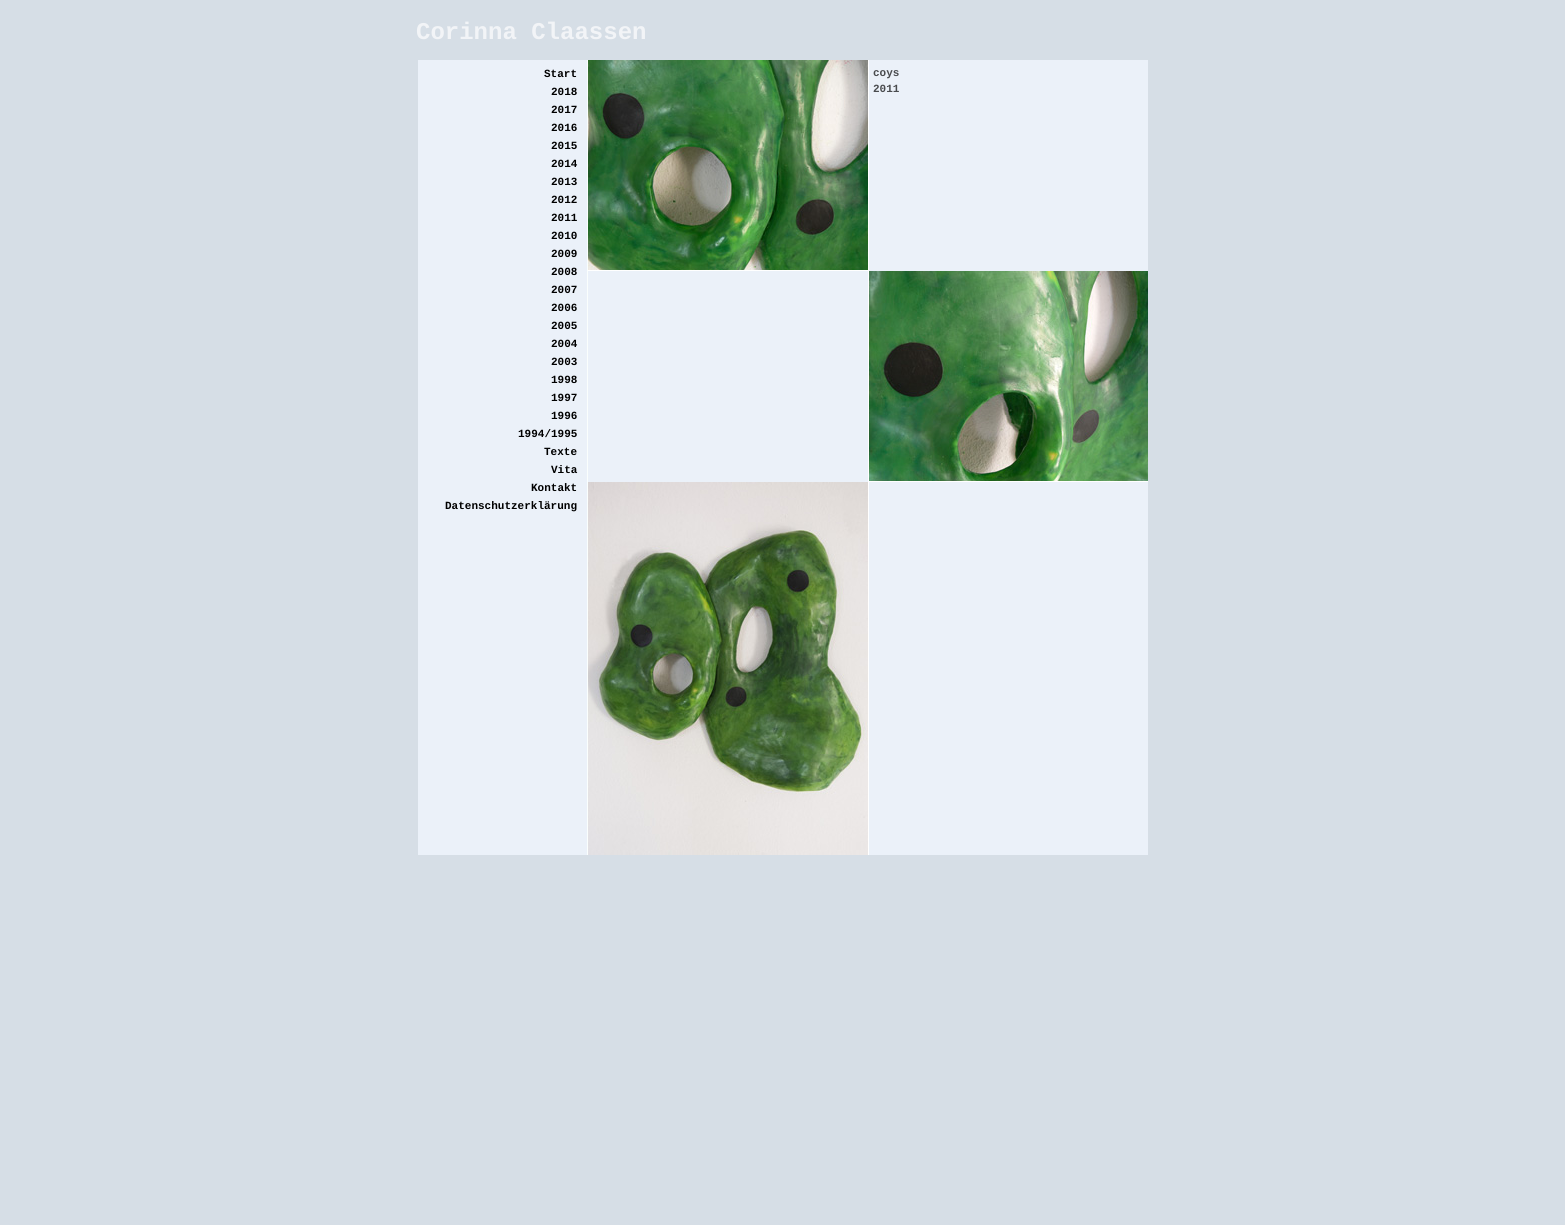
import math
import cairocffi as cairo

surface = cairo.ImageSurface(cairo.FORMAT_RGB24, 1565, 1225)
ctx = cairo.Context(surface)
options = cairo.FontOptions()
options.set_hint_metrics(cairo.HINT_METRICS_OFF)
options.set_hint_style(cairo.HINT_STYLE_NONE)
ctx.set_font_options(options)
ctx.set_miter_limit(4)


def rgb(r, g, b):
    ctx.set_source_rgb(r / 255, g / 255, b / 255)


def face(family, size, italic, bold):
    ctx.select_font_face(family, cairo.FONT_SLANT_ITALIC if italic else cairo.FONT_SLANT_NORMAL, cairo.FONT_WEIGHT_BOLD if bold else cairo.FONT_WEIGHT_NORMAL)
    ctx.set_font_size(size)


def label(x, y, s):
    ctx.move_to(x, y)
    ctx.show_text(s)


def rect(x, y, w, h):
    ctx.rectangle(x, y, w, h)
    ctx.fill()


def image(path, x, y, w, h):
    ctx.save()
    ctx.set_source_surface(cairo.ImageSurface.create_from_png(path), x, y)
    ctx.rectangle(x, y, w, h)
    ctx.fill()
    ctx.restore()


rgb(214, 222, 230)
ctx.paint()
face('Liberation Mono', 24, 0, 1)
rgb(242, 244, 247)
label(416, 39, 'Corinna Claassen')
rgb(235, 241, 249)
rect(418, 60, 730, 795)
rgb(250, 254, 253)
rect(587, 60, 1, 795)
face('Liberation Mono', 11, 0, 1)
rgb(0, 0, 0)
label(544, 77, 'Start')
label(551, 95, '2018')
label(551, 113, '2017')
label(551, 131, '2016')
label(551, 149, '2015')
label(551, 167, '2014')
label(551, 185, '2013')
label(551, 203, '2012')
label(551, 221, '2011')
label(551, 239, '2010')
label(551, 257, '2009')
label(551, 275, '2008')
label(551, 293, '2007')
label(551, 311, '2006')
label(551, 329, '2005')
label(551, 347, '2004')
label(551, 365, '2003')
label(551, 383, '1998')
label(551, 401, '1997')
label(551, 419, '1996')
label(518, 437, '1994/1995')
label(544, 455, 'Texte')
label(551, 473, 'Vita')
label(531, 491, 'Kontakt')
label(445, 509, 'Datenschutzerklärung')
image('image0.png', 588, 60, 280, 210)
rgb(255, 255, 255)
rect(868, 60, 1, 211)
rect(588, 270, 281, 1)
rgb(73, 75, 78)
label(873, 76, 'coys')
label(873, 92, '2011')
image('image1.png', 588, 482, 280, 373)
rgb(255, 255, 255)
rect(868, 481, 280, 1)
rect(868, 271, 1, 584)
image('image2.png', 869, 271, 279, 210)
surface.write_to_png('render.png')
